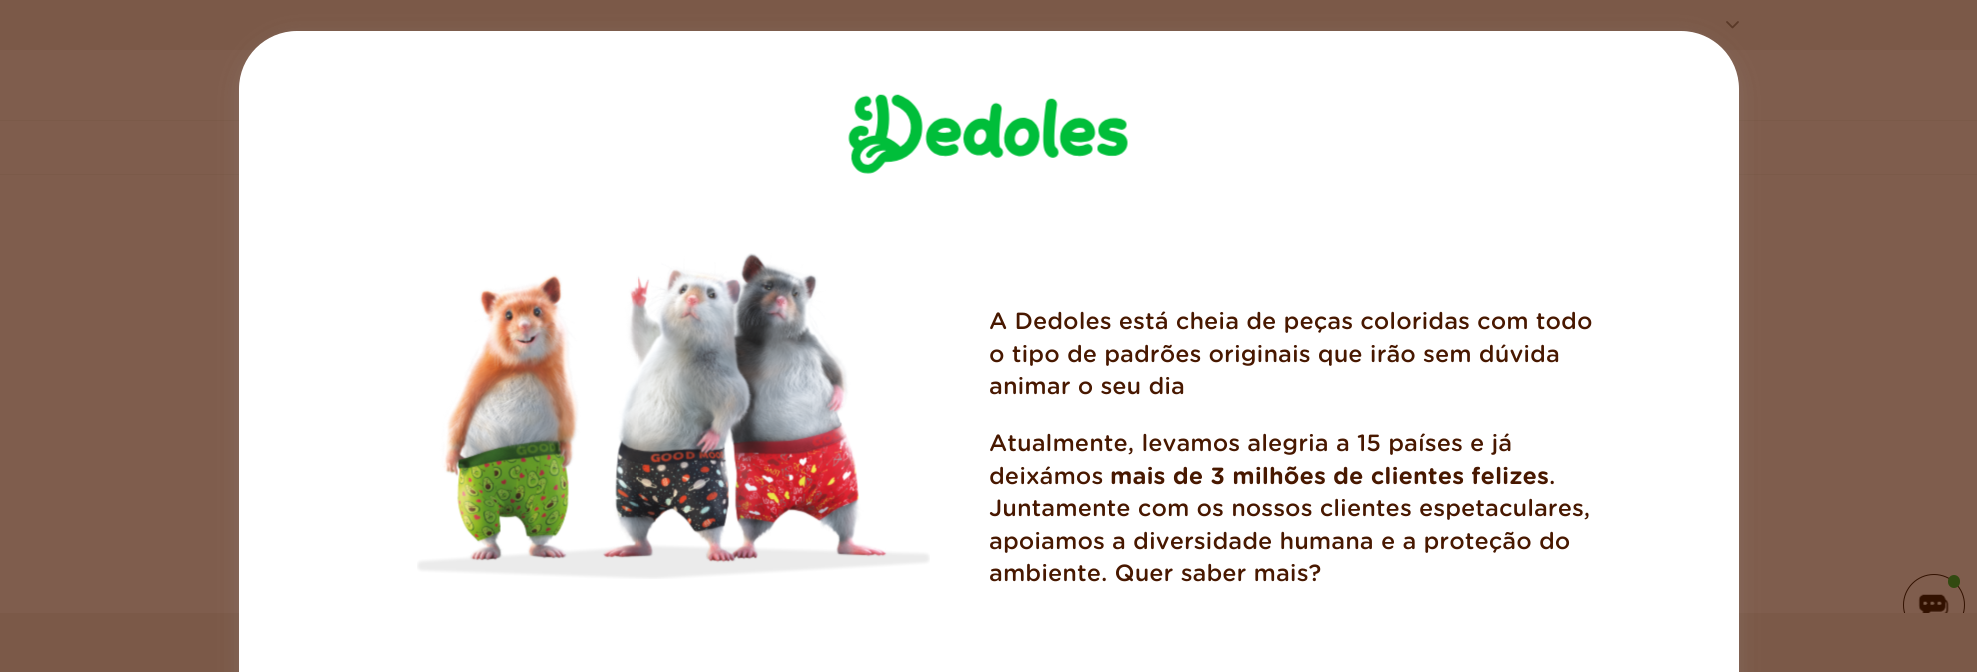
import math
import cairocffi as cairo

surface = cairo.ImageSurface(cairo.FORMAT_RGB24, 1977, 672)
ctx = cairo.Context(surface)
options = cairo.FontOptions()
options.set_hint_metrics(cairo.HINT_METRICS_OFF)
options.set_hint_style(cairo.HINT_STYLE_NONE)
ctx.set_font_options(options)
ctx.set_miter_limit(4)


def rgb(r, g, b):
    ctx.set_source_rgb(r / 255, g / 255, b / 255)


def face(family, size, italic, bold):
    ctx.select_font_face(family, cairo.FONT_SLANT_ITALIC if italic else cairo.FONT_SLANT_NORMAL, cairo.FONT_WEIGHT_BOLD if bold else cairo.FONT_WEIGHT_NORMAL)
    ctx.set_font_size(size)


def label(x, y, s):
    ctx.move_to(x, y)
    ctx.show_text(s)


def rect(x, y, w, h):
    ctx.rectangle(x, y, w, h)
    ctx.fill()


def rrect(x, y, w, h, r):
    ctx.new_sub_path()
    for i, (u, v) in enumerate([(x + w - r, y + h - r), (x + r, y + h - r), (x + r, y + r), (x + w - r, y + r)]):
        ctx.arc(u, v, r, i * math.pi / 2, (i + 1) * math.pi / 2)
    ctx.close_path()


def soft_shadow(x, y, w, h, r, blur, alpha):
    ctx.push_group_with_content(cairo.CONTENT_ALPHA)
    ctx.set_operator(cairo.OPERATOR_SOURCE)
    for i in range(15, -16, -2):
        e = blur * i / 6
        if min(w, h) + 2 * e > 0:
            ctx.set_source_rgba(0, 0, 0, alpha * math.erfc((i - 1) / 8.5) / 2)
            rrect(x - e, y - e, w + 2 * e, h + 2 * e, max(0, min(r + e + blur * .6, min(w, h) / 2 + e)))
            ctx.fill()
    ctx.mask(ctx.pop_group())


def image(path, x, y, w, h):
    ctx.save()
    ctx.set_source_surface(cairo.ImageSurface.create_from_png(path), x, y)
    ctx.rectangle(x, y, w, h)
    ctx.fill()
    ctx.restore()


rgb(127, 93, 77)
ctx.paint()
rgb(123, 89, 72)
rect(0, 0, 1977, 50)
ctx.save()
ctx.new_path()
ctx.move_to(1739, 19)
ctx.line_to(1739, 31)
ctx.line_to(1726, 31)
ctx.line_to(1726, 19)
ctx.close_path()
ctx.clip()
ctx.new_path()
ctx.move_to(1739, 21.5)
ctx.line_to(1739, 28.5)
ctx.line_to(1726, 28.5)
ctx.line_to(1726, 21.5)
ctx.close_path()
ctx.clip()
ctx.new_path()
ctx.move_to(1738, 22)
ctx.line_to(1732.5, 27.5)
ctx.line_to(1727, 22)
rgb(90, 57, 40)
ctx.set_line_width(1.8)
ctx.set_line_cap(cairo.LINE_CAP_ROUND)
ctx.set_line_join(cairo.LINE_JOIN_ROUND)
ctx.stroke()
ctx.restore()
rgb(123, 90, 73)
rect(0, 120, 1977, 1)
rect(0, 174, 1977, 1)
ctx.arc(1934, 605, 30.5, 0, 2 * math.pi)
rgb(50, 17, 0)
ctx.set_line_width(1)
ctx.stroke()
rgb(123, 89, 72)
rect(0, 613, 1977, 59)
rgb(169, 169, 169)
soft_shadow(239, 36, 1500, 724, 58, 10, 0.2)
rgb(255, 255, 255)
ctx.new_path()
ctx.move_to(297, 31)
ctx.line_to(1681, 31)
ctx.curve_to(1713, 31, 1739, 57, 1739, 89)
ctx.line_to(1739, 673)
ctx.line_to(239, 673)
ctx.line_to(239, 89)
ctx.curve_to(239, 57, 265, 31, 297, 31)
ctx.close_path()
ctx.fill()
image('image0.png', 848, 94, 280, 80)
image('image1.png', 417, 253, 513, 326)
face('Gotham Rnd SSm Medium', 22.5, 0, 0)
rgb(72, 24, 0)
label(989, 329, 'A Dedoles está cheia de peças coloridas com todo')
label(989, 362, 'o tipo de padrões originais que irão sem dúvida')
label(989, 394, 'animar o seu dia')
label(989, 451, 'Atualmente, levamos alegria a 15 países e já')
label(989, 484, 'deixámos')
face('Gotham Rnd SSm', 22.5, 0, 1)
label(1110, 484, 'mais de 3 milhões de clientes felizes')
face('Gotham Rnd SSm Medium', 22.5, 0, 0)
label(1549, 484, '.')
label(989, 516, 'Juntamente com os nossos clientes espetaculares,')
label(989, 549, 'apoiamos a diversidade humana e a proteção do')
label(989, 581, 'ambiente. Quer saber mais?')
image('image2.png', 1918, 594, 31, 19)
rgb(50, 74, 17)
rrect(1948, 575, 12, 13, 6)
ctx.fill()
surface.write_to_png('render.png')
